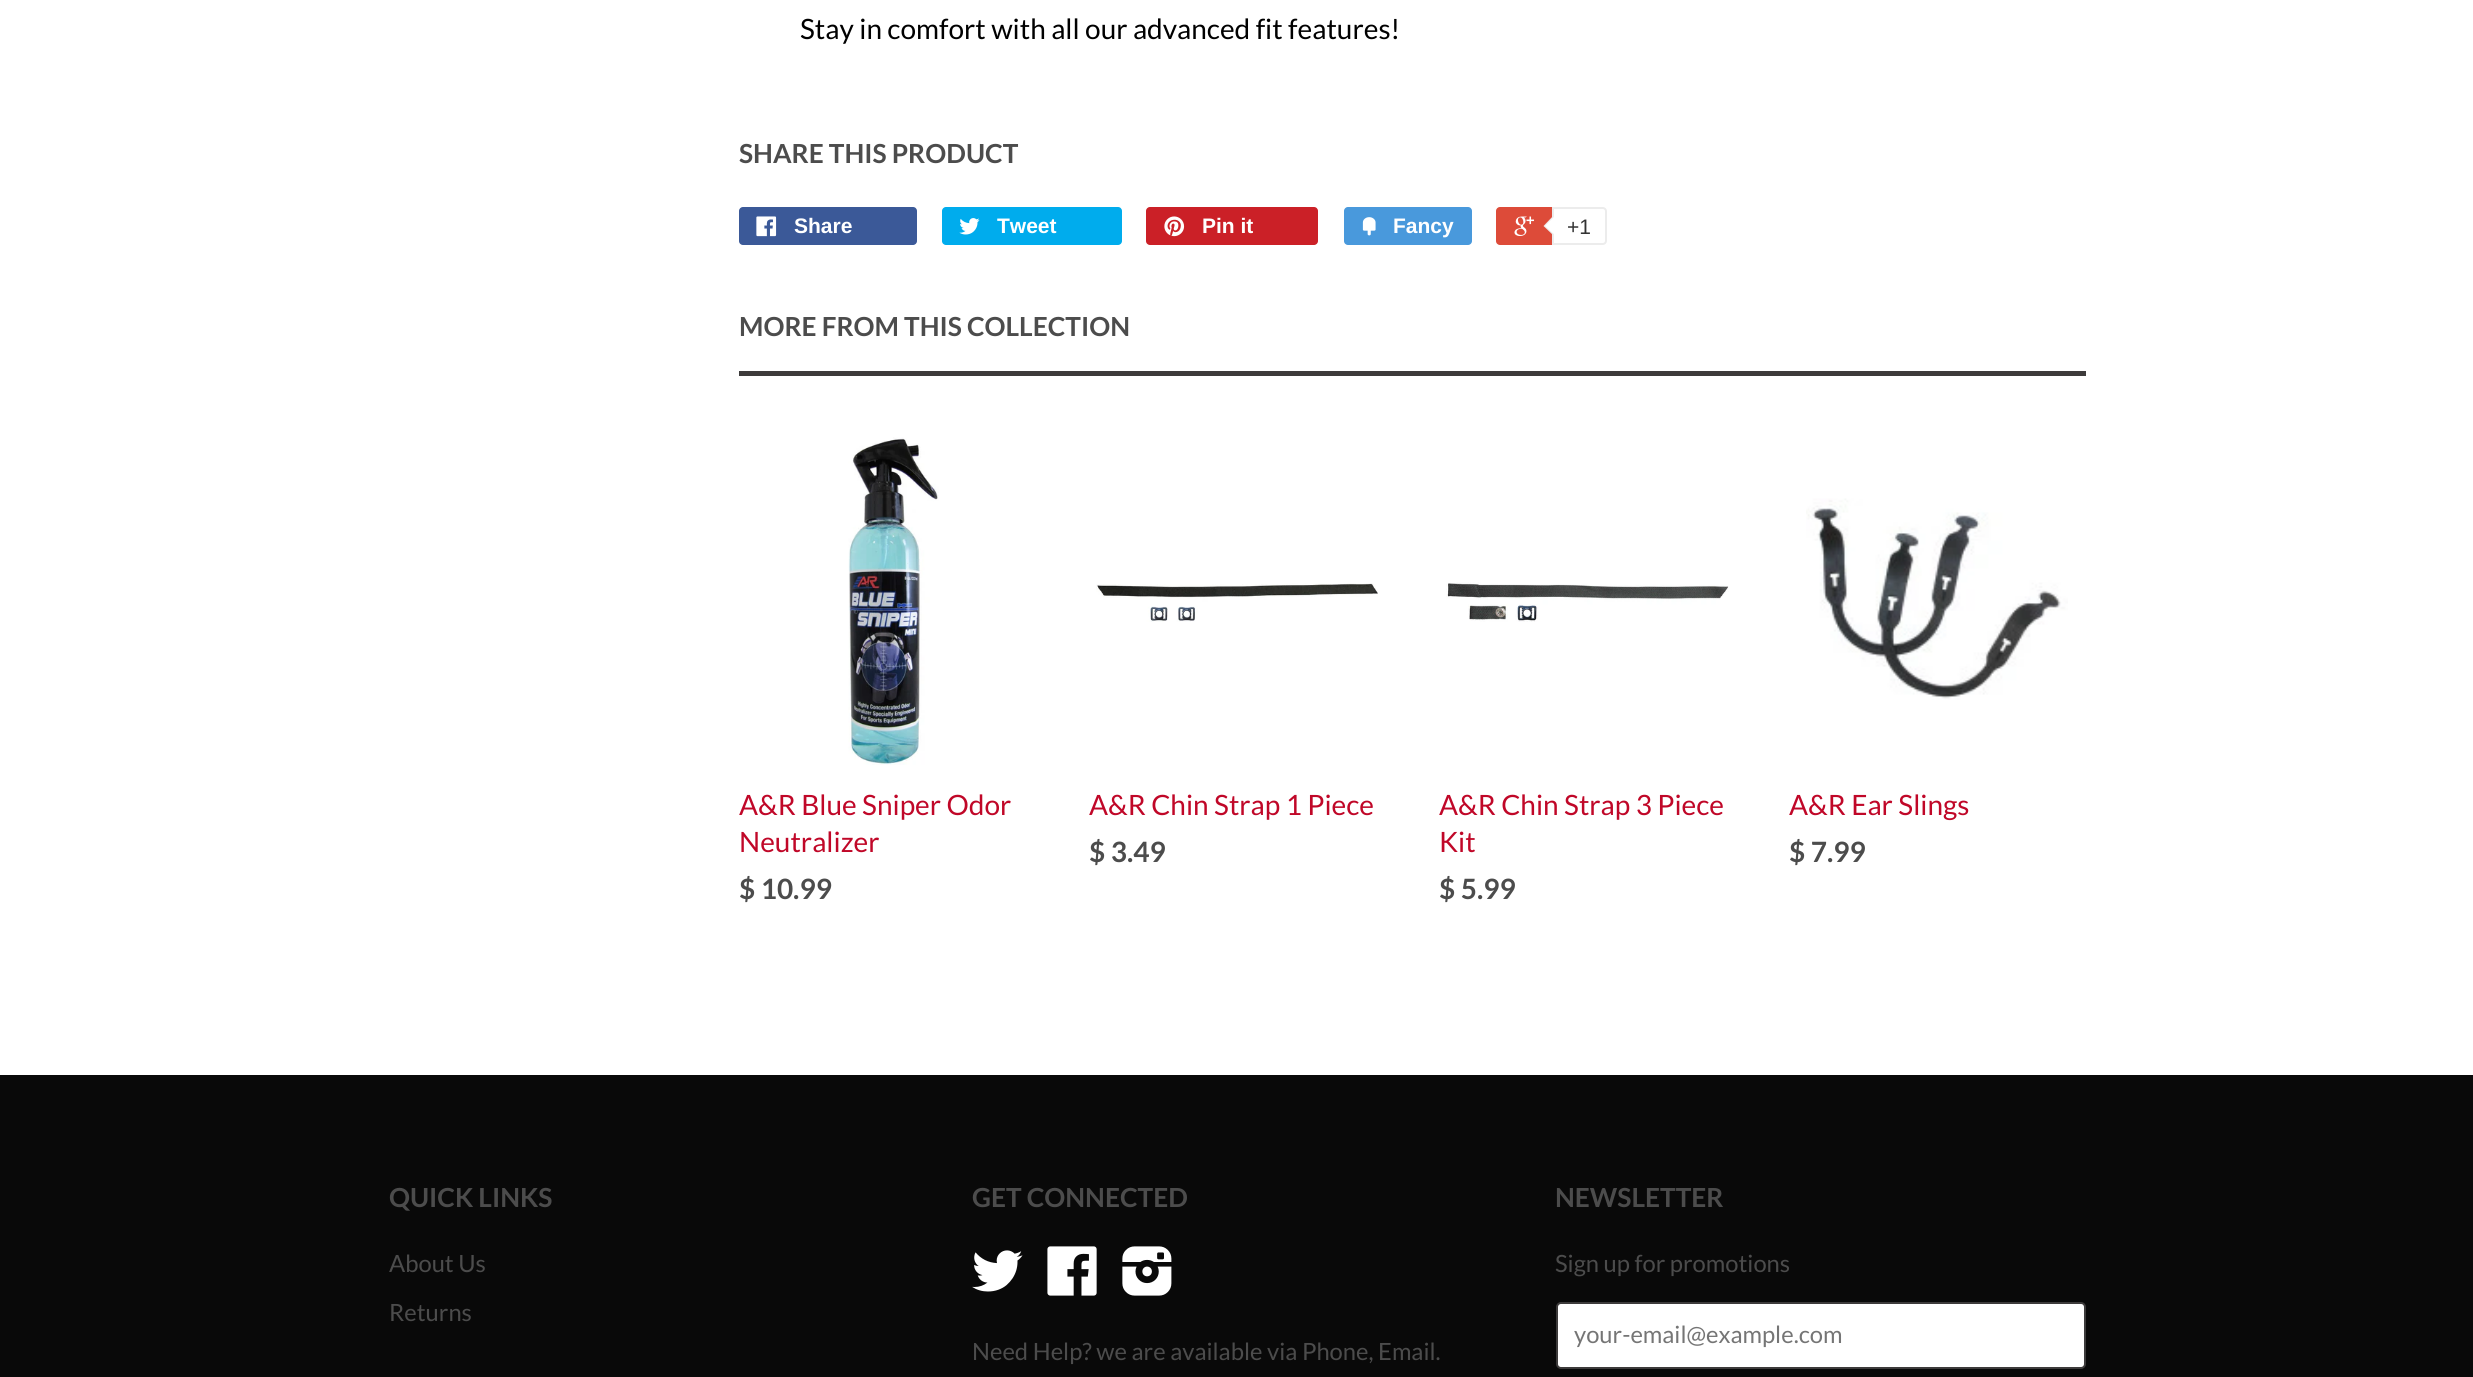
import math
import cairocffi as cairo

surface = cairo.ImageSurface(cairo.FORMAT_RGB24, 2473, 1377)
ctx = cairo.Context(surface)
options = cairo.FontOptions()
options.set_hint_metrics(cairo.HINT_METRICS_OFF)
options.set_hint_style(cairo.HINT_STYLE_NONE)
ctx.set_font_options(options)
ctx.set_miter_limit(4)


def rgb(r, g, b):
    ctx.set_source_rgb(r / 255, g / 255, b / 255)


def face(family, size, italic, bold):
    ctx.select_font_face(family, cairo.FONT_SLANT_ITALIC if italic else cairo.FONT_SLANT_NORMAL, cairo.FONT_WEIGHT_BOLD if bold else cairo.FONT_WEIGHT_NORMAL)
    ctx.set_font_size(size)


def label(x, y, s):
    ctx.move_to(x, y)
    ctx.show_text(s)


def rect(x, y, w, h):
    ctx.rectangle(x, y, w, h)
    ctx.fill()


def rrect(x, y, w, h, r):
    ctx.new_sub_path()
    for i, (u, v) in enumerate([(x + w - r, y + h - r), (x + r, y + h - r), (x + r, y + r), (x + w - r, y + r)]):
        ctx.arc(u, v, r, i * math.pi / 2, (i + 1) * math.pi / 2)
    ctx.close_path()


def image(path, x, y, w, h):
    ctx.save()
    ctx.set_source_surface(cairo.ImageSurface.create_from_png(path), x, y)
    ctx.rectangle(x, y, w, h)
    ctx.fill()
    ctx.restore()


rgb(255, 255, 255)
ctx.paint()
face('Lato', 28, 0, 0)
rgb(0, 0, 0)
label(800, 39, 'Stay in comfort with all our advanced fit features!')
face('Lato', 26.25, 0, 1)
rgb(76, 76, 76)
label(739, 163, 'SHARE THIS PRODUCT')
rgb(59, 89, 152)
rrect(739, 207, 178, 38, 4)
ctx.fill()
image('image0.png', 756, 216, 21, 21)
face('Liberation Sans', 21, 0, 1)
rgb(255, 255, 255)
label(794, 233, 'Share')
rgb(0, 172, 237)
rrect(942, 207, 180, 38, 4)
ctx.fill()
image('image1.png', 959, 218, 21, 17)
rgb(255, 255, 255)
label(997, 233, 'Tweet')
rgb(203, 32, 39)
rrect(1146, 207, 172, 38, 4)
ctx.fill()
image('image2.png', 1164, 216, 21, 21)
rgb(255, 255, 255)
label(1202, 233, 'Pin it')
rgb(73, 153, 220)
rrect(1344, 207, 128, 38, 4)
ctx.fill()
image('image3.png', 1362, 217, 14, 19)
rgb(255, 255, 255)
label(1393, 233, 'Fancy')
rgb(221, 75, 57)
rrect(1496, 207, 107, 38, 4)
ctx.fill()
image('image4.png', 1514, 216, 20, 20)
rgb(255, 255, 255)
ctx.new_path()
ctx.move_to(1553, 208)
ctx.line_to(1603, 208)
ctx.curve_to(1604.5, 208, 1606, 209.5, 1606, 211)
ctx.line_to(1606, 241)
ctx.curve_to(1606, 242.5, 1604.5, 244, 1603, 244)
ctx.line_to(1553, 244)
ctx.close_path()
ctx.fill_preserve()
rgb(236, 236, 236)
ctx.stroke()
ctx.new_path()
ctx.move_to(1554, 215)
ctx.line_to(1554, 236)
ctx.line_to(1543.5, 226)
ctx.close_path()
ctx.fill()
rgb(255, 255, 255)
ctx.new_path()
ctx.move_to(1556, 215)
ctx.line_to(1556, 236)
ctx.line_to(1545, 226)
ctx.close_path()
ctx.fill()
face('Liberation Sans', 21, 0, 0)
rgb(51, 51, 51)
label(1567, 234, '+1')
rgb(61, 59, 59)
rect(739, 371, 1347, 5)
face('Lato', 26.25, 0, 1)
rgb(76, 76, 76)
label(739, 336, 'MORE FROM THIS COLLECTION')
image('image5.png', 848, 437, 91, 328)
face('Lato', 28, 0, 0)
rgb(192, 7, 40)
label(739, 815, 'A&R Blue Sniper Odor')
label(739, 852, 'Neutralizer')
face('Lato', 28, 0, 1)
rgb(76, 76, 76)
label(739, 899, '$ 10.99')
image('image6.png', 1096, 583, 282, 39)
face('Lato', 28, 0, 0)
rgb(192, 7, 40)
label(1089, 815, 'A&R Chin Strap 1 Piece')
face('Lato', 28, 0, 1)
rgb(76, 76, 76)
label(1089, 862, '$ 3.49')
image('image7.png', 1446, 582, 283, 40)
face('Lato', 28, 0, 0)
rgb(192, 7, 40)
label(1439, 815, 'A&R Chin Strap 3 Piece')
label(1439, 852, 'Kit')
face('Lato', 28, 0, 1)
rgb(76, 76, 76)
label(1439, 899, '$ 5.99')
image('image8.png', 1806, 498, 262, 202)
face('Lato', 28, 0, 0)
rgb(192, 7, 40)
label(1789, 815, 'A&R Ear Slings')
face('Lato', 28, 0, 1)
rgb(76, 76, 76)
label(1789, 862, '$ 7.99')
rgb(9, 9, 9)
rect(0, 1075, 2473, 302)
face('Lato', 26.25, 0, 1)
rgb(76, 76, 76)
label(389, 1207, 'QUICK LINKS')
face('Lato', 23.75, 0, 0)
label(389, 1272, 'About Us')
label(389, 1321, 'Returns')
face('Lato', 26.25, 0, 1)
label(972, 1207, 'GET CONNECTED')
image('image9.png', 972, 1250, 51, 42)
image('image10.png', 1047, 1246, 50, 50)
image('image11.png', 1122, 1246, 50, 50)
face('Lato', 23.75, 0, 0)
label(972, 1360, 'Need Help? we are available via Phone, Email.')
face('Lato', 26.25, 0, 1)
label(1555, 1207, 'NEWSLETTER')
face('Lato', 23.75, 0, 0)
label(1555, 1272, 'Sign up for promotions')
rgb(255, 255, 255)
rrect(1557, 1303, 528, 65, 4)
ctx.fill_preserve()
rgb(61, 59, 59)
ctx.stroke()
rgb(117, 117, 117)
label(1574, 1343, 'your-email@example.com')
surface.write_to_png('render.png')
